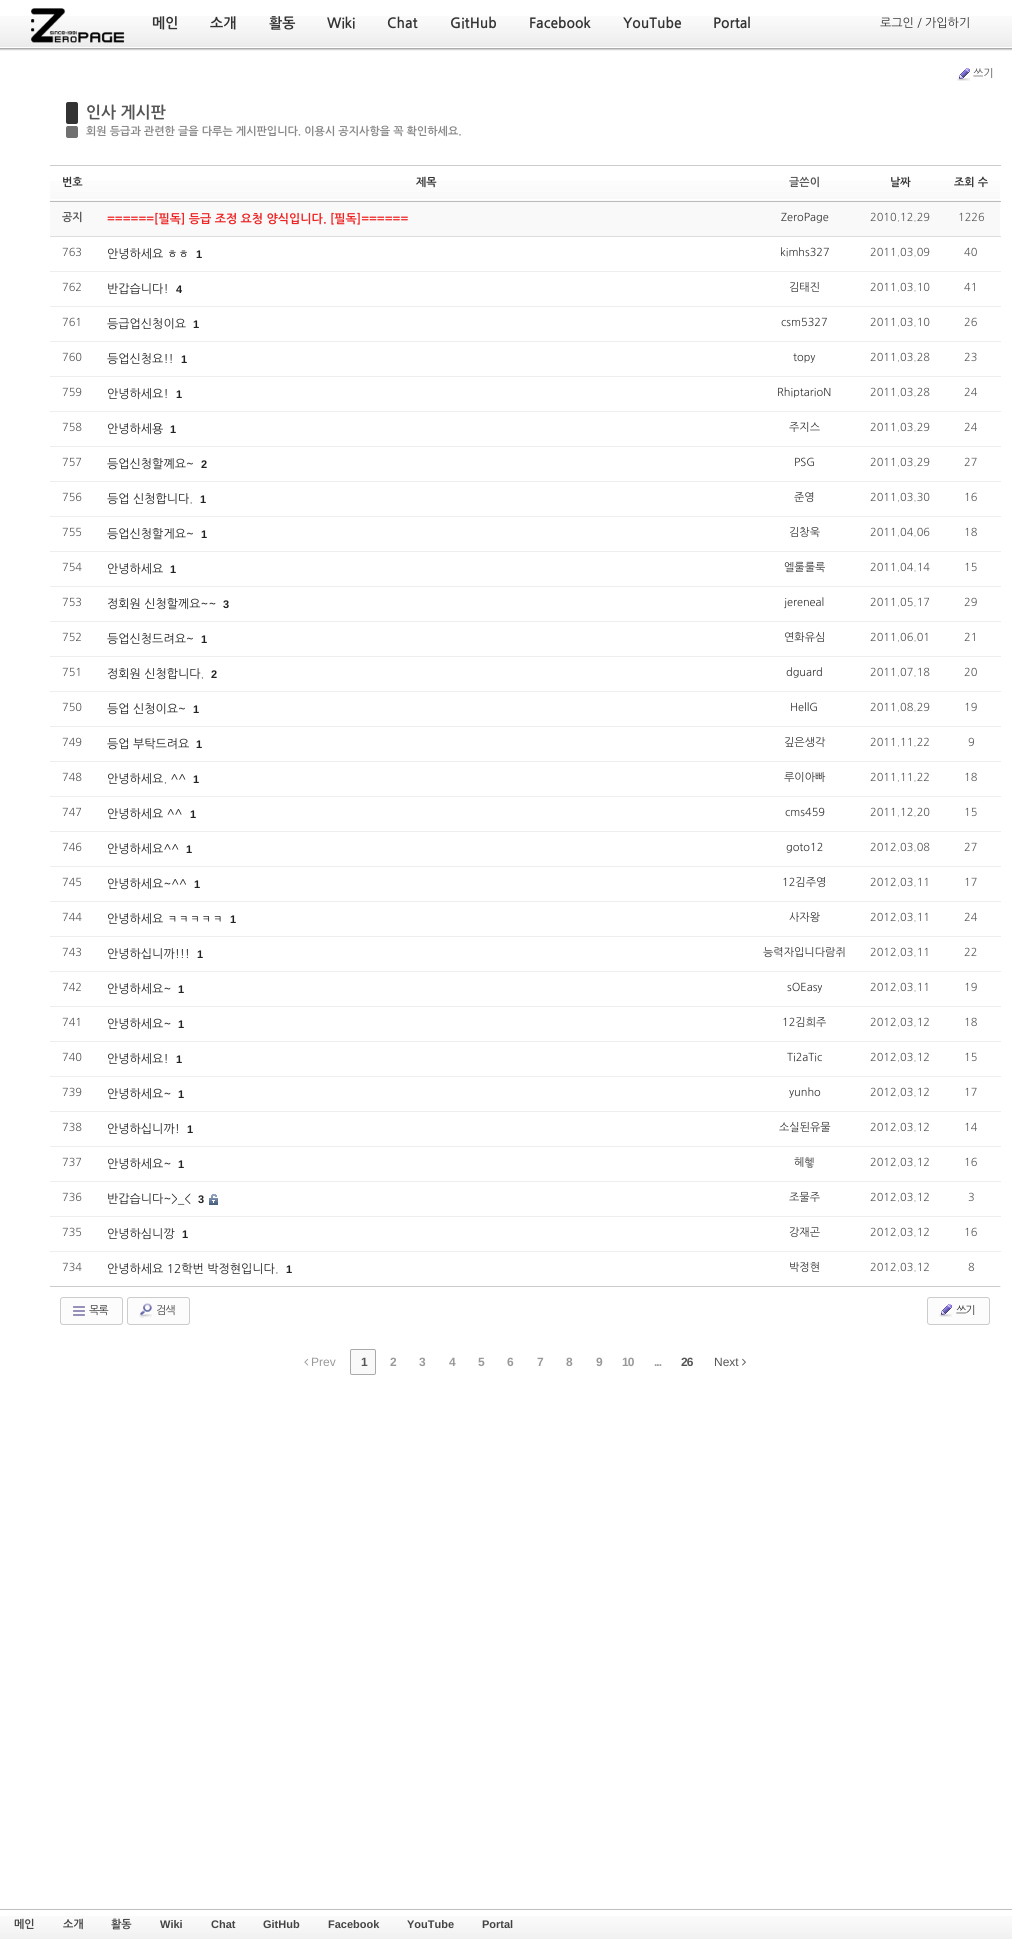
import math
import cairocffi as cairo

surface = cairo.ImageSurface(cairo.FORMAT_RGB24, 1012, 1939)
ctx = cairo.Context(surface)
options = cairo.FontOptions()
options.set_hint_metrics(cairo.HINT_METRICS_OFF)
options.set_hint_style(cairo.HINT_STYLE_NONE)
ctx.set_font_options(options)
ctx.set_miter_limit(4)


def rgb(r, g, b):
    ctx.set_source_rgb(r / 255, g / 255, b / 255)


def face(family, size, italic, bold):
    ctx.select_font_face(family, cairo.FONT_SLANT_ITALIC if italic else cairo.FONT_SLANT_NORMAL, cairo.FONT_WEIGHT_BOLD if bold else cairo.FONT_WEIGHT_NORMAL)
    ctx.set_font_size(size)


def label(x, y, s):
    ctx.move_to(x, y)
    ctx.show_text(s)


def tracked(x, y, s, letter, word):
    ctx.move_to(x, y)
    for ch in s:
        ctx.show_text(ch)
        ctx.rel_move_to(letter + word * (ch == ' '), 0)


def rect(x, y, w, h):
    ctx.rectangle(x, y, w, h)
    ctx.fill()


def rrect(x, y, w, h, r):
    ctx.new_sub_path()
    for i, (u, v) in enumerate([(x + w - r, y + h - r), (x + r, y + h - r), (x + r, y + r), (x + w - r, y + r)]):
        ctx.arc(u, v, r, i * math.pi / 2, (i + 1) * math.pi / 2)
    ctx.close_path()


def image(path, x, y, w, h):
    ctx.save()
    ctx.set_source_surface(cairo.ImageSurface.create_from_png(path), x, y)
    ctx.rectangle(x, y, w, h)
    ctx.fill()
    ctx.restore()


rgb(255, 255, 255)
ctx.paint()
image('image0.png', 0, 16, 1012, 35)
image('image1.png', 31, 8, 94, 35)
face('NanumGothic', 14, 0, 1)
rgb(51, 51, 51)
label(152, 28, '메인')
label(210, 28, '소개')
label(269, 28, '활동')
label(327, 28, 'Wiki')
label(387, 28, 'Chat')
label(450, 28, 'GitHub')
label(529, 28, 'Facebook')
label(623, 28, 'YouTube')
label(713, 28, 'Portal')
face('NanumGothic', 12, 0, 0)
label(880, 27, '로그인 / 가입하기')
image('image2.png', 957, 68, 13, 13)
face('NanumGothic', 11, 0, 0)
rgb(85, 85, 85)
label(973, 77, '쓰기')
rgb(51, 51, 51)
rrect(66, 102, 12, 22, 2)
ctx.fill()
face('NanumGothic', 16, 0, 1)
rgb(85, 85, 85)
label(86, 118, '인사 게시판')
rgb(112, 112, 112)
rrect(66, 126, 12, 12, 2)
ctx.fill()
face('NanumGothic', 11, 0, 1)
rgb(136, 136, 136)
label(86, 135, '회원 등급과 관련한 글을 다루는 게시판입니다. 이용시 공지사항을 꼭 확인하세요.')
gradient = cairo.LinearGradient(525, 166, 525, 201)
gradient.add_color_stop_rgba(0, 1, 1, 1, 1)
gradient.add_color_stop_rgba(1, 0.976, 0.976, 0.976, 1)
ctx.set_source(gradient)
rect(50, 181, 950, 20)
rgb(255, 255, 255)
rect(50, 199, 950, 1)
rgb(51, 51, 51)
label(62, 186, '번호')
label(416, 186, '제목')
rgb(85, 85, 85)
label(789, 186, '글쓴이')
rgb(51, 51, 51)
label(890, 186, '날짜')
rgb(204, 204, 204)
rect(50, 165, 951, 1)
rgb(187, 187, 187)
rect(50, 201, 951, 1)
rgb(51, 51, 51)
label(954, 186, '조회 수')
rgb(249, 249, 249)
rect(50, 202, 950, 34)
rgb(85, 85, 85)
label(62, 221, '공지')
face('NanumGothic', 12, 0, 1)
rgb(238, 34, 34)
label(107, 223, '======[필독] 등급 조정 요청 양식입니다. [필독]======')
face('NanumGothic', 11, 0, 0)
rgb(51, 51, 51)
label(781, 221, 'ZeroPage')
rgb(85, 85, 85)
label(870, 221, '2010.12.29')
rgb(221, 221, 221)
rect(50, 236, 951, 1)
rgb(85, 85, 85)
label(958, 221, '1226')
label(62, 256, '763')
face('NanumGothic', 12, 0, 0)
rgb(34, 34, 34)
label(107, 258, '안녕하세요 ㅎㅎ')
face('Liberation Sans', 11, 0, 1)
label(196, 258, '1')
face('NanumGothic', 11, 0, 0)
rgb(51, 51, 51)
label(780, 256, 'kimhs327')
rgb(85, 85, 85)
label(870, 256, '2011.03.09')
rgb(238, 238, 238)
rect(50, 271, 951, 1)
rgb(85, 85, 85)
label(964, 256, '40')
label(62, 291, '762')
face('NanumGothic', 12, 0, 0)
rgb(34, 34, 34)
label(107, 293, '반갑습니다!')
face('Liberation Sans', 11, 0, 1)
label(176, 293, '4')
face('NanumGothic', 11, 0, 0)
rgb(51, 51, 51)
label(789, 291, '김태진')
rgb(85, 85, 85)
label(870, 291, '2011.03.10')
rgb(238, 238, 238)
rect(50, 306, 951, 1)
rgb(85, 85, 85)
label(964, 291, '41')
label(62, 326, '761')
face('NanumGothic', 12, 0, 0)
rgb(34, 34, 34)
label(107, 328, '등급업신청이요')
face('Liberation Sans', 11, 0, 1)
label(193, 328, '1')
face('NanumGothic', 11, 0, 0)
rgb(51, 51, 51)
label(781, 326, 'csm5327')
rgb(85, 85, 85)
label(870, 326, '2011.03.10')
rgb(238, 238, 238)
rect(50, 341, 951, 1)
rgb(85, 85, 85)
label(964, 326, '26')
label(62, 361, '760')
face('NanumGothic', 12, 0, 0)
rgb(34, 34, 34)
label(107, 363, '등업신청요!!')
face('Liberation Sans', 11, 0, 1)
label(181, 363, '1')
face('NanumGothic', 11, 0, 0)
rgb(51, 51, 51)
label(793, 361, 'topy')
rgb(85, 85, 85)
label(870, 361, '2011.03.28')
rgb(238, 238, 238)
rect(50, 376, 951, 1)
rgb(85, 85, 85)
label(964, 361, '23')
label(62, 396, '759')
face('NanumGothic', 12, 0, 0)
rgb(34, 34, 34)
label(107, 398, '안녕하세요!')
face('Liberation Sans', 11, 0, 1)
label(176, 398, '1')
face('NanumGothic', 11, 0, 0)
rgb(51, 51, 51)
label(777, 396, 'RhiptarioN')
rgb(85, 85, 85)
label(870, 396, '2011.03.28')
rgb(238, 238, 238)
rect(50, 411, 951, 1)
rgb(85, 85, 85)
label(964, 396, '24')
label(62, 431, '758')
face('NanumGothic', 12, 0, 0)
rgb(34, 34, 34)
label(107, 433, '안녕하세용')
face('Liberation Sans', 11, 0, 1)
label(170, 433, '1')
face('NanumGothic', 11, 0, 0)
rgb(51, 51, 51)
label(789, 431, '주지스')
rgb(85, 85, 85)
label(870, 431, '2011.03.29')
rgb(238, 238, 238)
rect(50, 446, 951, 1)
rgb(85, 85, 85)
label(964, 431, '24')
label(62, 466, '757')
face('NanumGothic', 12, 0, 0)
rgb(34, 34, 34)
label(107, 468, '등업신청할꼐요~')
face('Liberation Sans', 11, 0, 1)
label(201, 468, '2')
face('NanumGothic', 11, 0, 0)
rgb(51, 51, 51)
label(794, 466, 'PSG')
rgb(85, 85, 85)
label(870, 466, '2011.03.29')
rgb(238, 238, 238)
rect(50, 481, 951, 1)
rgb(85, 85, 85)
label(964, 466, '27')
label(62, 501, '756')
face('NanumGothic', 12, 0, 0)
rgb(34, 34, 34)
label(107, 503, '등업 신청합니다.')
face('Liberation Sans', 11, 0, 1)
label(200, 503, '1')
face('NanumGothic', 11, 0, 0)
rgb(51, 51, 51)
label(794, 501, '준영')
rgb(85, 85, 85)
label(870, 501, '2011.03.30')
rgb(238, 238, 238)
rect(50, 516, 951, 1)
rgb(85, 85, 85)
label(964, 501, '16')
label(62, 536, '755')
face('NanumGothic', 12, 0, 0)
rgb(34, 34, 34)
label(107, 538, '등업신청할게요~')
face('Liberation Sans', 11, 0, 1)
label(201, 538, '1')
face('NanumGothic', 11, 0, 0)
rgb(51, 51, 51)
label(789, 536, '김창욱')
rgb(85, 85, 85)
label(870, 536, '2011.04.06')
rgb(238, 238, 238)
rect(50, 551, 951, 1)
rgb(85, 85, 85)
label(964, 536, '18')
label(62, 571, '754')
face('NanumGothic', 12, 0, 0)
rgb(34, 34, 34)
label(107, 573, '안녕하세요')
face('Liberation Sans', 11, 0, 1)
label(170, 573, '1')
face('NanumGothic', 11, 0, 0)
rgb(51, 51, 51)
label(784, 571, '엘룰룰룩')
rgb(85, 85, 85)
label(870, 571, '2011.04.14')
rgb(238, 238, 238)
rect(50, 586, 951, 1)
rgb(85, 85, 85)
label(964, 571, '15')
label(62, 606, '753')
face('NanumGothic', 12, 0, 0)
rgb(34, 34, 34)
label(107, 608, '정회원 신청할께요~~')
face('Liberation Sans', 11, 0, 1)
label(223, 608, '3')
face('NanumGothic', 11, 0, 0)
rgb(51, 51, 51)
label(784, 606, 'jereneal')
rgb(85, 85, 85)
label(870, 606, '2011.05.17')
rgb(238, 238, 238)
rect(50, 621, 951, 1)
rgb(85, 85, 85)
label(964, 606, '29')
label(62, 641, '752')
face('NanumGothic', 12, 0, 0)
rgb(34, 34, 34)
label(107, 643, '등업신청드려요~')
face('Liberation Sans', 11, 0, 1)
label(201, 643, '1')
face('NanumGothic', 11, 0, 0)
rgb(51, 51, 51)
label(784, 641, '연화유심')
rgb(85, 85, 85)
label(870, 641, '2011.06.01')
rgb(238, 238, 238)
rect(50, 656, 951, 1)
rgb(85, 85, 85)
label(964, 641, '21')
label(62, 676, '751')
face('NanumGothic', 12, 0, 0)
rgb(34, 34, 34)
label(107, 678, '정회원 신청합니다.')
face('Liberation Sans', 11, 0, 1)
label(211, 678, '2')
face('NanumGothic', 11, 0, 0)
rgb(51, 51, 51)
label(786, 676, 'dguard')
rgb(85, 85, 85)
label(870, 676, '2011.07.18')
rgb(238, 238, 238)
rect(50, 691, 951, 1)
rgb(85, 85, 85)
label(964, 676, '20')
label(62, 711, '750')
face('NanumGothic', 12, 0, 0)
rgb(34, 34, 34)
label(107, 713, '등업 신청이요~')
face('Liberation Sans', 11, 0, 1)
label(193, 713, '1')
face('NanumGothic', 11, 0, 0)
rgb(51, 51, 51)
label(790, 711, 'HellG')
rgb(85, 85, 85)
label(870, 711, '2011.08.29')
rgb(238, 238, 238)
rect(50, 726, 951, 1)
rgb(85, 85, 85)
label(964, 711, '19')
label(62, 746, '749')
face('NanumGothic', 12, 0, 0)
rgb(34, 34, 34)
label(107, 748, '등업 부탁드려요')
face('Liberation Sans', 11, 0, 1)
label(196, 748, '1')
face('NanumGothic', 11, 0, 0)
rgb(51, 51, 51)
label(784, 746, '깊은생각')
rgb(85, 85, 85)
label(870, 746, '2011.11.22')
rgb(238, 238, 238)
rect(50, 761, 951, 1)
rgb(85, 85, 85)
label(968, 746, '9')
label(62, 781, '748')
face('NanumGothic', 12, 0, 0)
rgb(34, 34, 34)
label(107, 783, '안녕하세요. ^^')
face('Liberation Sans', 11, 0, 1)
label(193, 783, '1')
face('NanumGothic', 11, 0, 0)
rgb(51, 51, 51)
label(784, 781, '루이아빠')
rgb(85, 85, 85)
label(870, 781, '2011.11.22')
rgb(238, 238, 238)
rect(50, 796, 951, 1)
rgb(85, 85, 85)
label(964, 781, '18')
label(62, 816, '747')
face('NanumGothic', 12, 0, 0)
rgb(34, 34, 34)
label(107, 818, '안녕하세요 ^^')
face('Liberation Sans', 11, 0, 1)
label(190, 818, '1')
face('NanumGothic', 11, 0, 0)
rgb(51, 51, 51)
label(785, 816, 'cms459')
rgb(85, 85, 85)
label(870, 816, '2011.12.20')
rgb(238, 238, 238)
rect(50, 831, 951, 1)
rgb(85, 85, 85)
label(964, 816, '15')
label(62, 851, '746')
face('NanumGothic', 12, 0, 0)
rgb(34, 34, 34)
label(107, 853, '안녕하세요^^')
face('Liberation Sans', 11, 0, 1)
label(186, 853, '1')
face('NanumGothic', 11, 0, 0)
rgb(51, 51, 51)
label(786, 851, 'goto12')
rgb(85, 85, 85)
label(870, 851, '2012.03.08')
rgb(238, 238, 238)
rect(50, 866, 951, 1)
rgb(85, 85, 85)
label(964, 851, '27')
label(62, 886, '745')
face('NanumGothic', 12, 0, 0)
rgb(34, 34, 34)
label(107, 888, '안녕하세요~^^')
face('Liberation Sans', 11, 0, 1)
label(194, 888, '1')
face('NanumGothic', 11, 0, 0)
rgb(51, 51, 51)
label(782, 886, '12김주영')
rgb(85, 85, 85)
label(870, 886, '2012.03.11')
rgb(238, 238, 238)
rect(50, 901, 951, 1)
rgb(85, 85, 85)
label(964, 886, '17')
label(62, 921, '744')
face('NanumGothic', 12, 0, 0)
rgb(34, 34, 34)
label(107, 923, '안녕하세요 ㅋㅋㅋㅋㅋ')
face('Liberation Sans', 11, 0, 1)
label(230, 923, '1')
face('NanumGothic', 11, 0, 0)
rgb(51, 51, 51)
label(789, 921, '사자왕')
rgb(85, 85, 85)
label(870, 921, '2012.03.11')
rgb(238, 238, 238)
rect(50, 936, 951, 1)
rgb(85, 85, 85)
label(964, 921, '24')
label(62, 956, '743')
face('NanumGothic', 12, 0, 0)
rgb(34, 34, 34)
label(107, 958, '안녕하십니까!!!')
face('Liberation Sans', 11, 0, 1)
label(197, 958, '1')
face('NanumGothic', 11, 0, 0)
rgb(51, 51, 51)
label(763, 956, '능력자입니다람쥐')
rgb(85, 85, 85)
label(870, 956, '2012.03.11')
rgb(238, 238, 238)
rect(50, 971, 951, 1)
rgb(85, 85, 85)
label(964, 956, '22')
label(62, 991, '742')
face('NanumGothic', 12, 0, 0)
rgb(34, 34, 34)
label(107, 993, '안녕하세요~')
face('Liberation Sans', 11, 0, 1)
label(178, 993, '1')
face('NanumGothic', 11, 0, 0)
rgb(51, 51, 51)
label(787, 991, 'sOEasy')
rgb(85, 85, 85)
label(870, 991, '2012.03.11')
rgb(238, 238, 238)
rect(50, 1006, 951, 1)
rgb(85, 85, 85)
label(964, 991, '19')
label(62, 1026, '741')
face('NanumGothic', 12, 0, 0)
rgb(34, 34, 34)
label(107, 1028, '안녕하세요~')
face('Liberation Sans', 11, 0, 1)
label(178, 1028, '1')
face('NanumGothic', 11, 0, 0)
rgb(51, 51, 51)
label(782, 1026, '12김희주')
rgb(85, 85, 85)
label(870, 1026, '2012.03.12')
rgb(238, 238, 238)
rect(50, 1041, 951, 1)
rgb(85, 85, 85)
label(964, 1026, '18')
label(62, 1061, '740')
face('NanumGothic', 12, 0, 0)
rgb(34, 34, 34)
label(107, 1063, '안녕하세요!')
face('Liberation Sans', 11, 0, 1)
label(176, 1063, '1')
face('NanumGothic', 11, 0, 0)
rgb(51, 51, 51)
label(787, 1061, 'Ti2aTic')
rgb(85, 85, 85)
label(870, 1061, '2012.03.12')
rgb(238, 238, 238)
rect(50, 1076, 951, 1)
rgb(85, 85, 85)
label(964, 1061, '15')
label(62, 1096, '739')
face('NanumGothic', 12, 0, 0)
rgb(34, 34, 34)
label(107, 1098, '안녕하세요~')
face('Liberation Sans', 11, 0, 1)
label(178, 1098, '1')
face('NanumGothic', 11, 0, 0)
rgb(51, 51, 51)
label(789, 1096, 'yunho')
rgb(85, 85, 85)
label(870, 1096, '2012.03.12')
rgb(238, 238, 238)
rect(50, 1111, 951, 1)
rgb(85, 85, 85)
label(964, 1096, '17')
label(62, 1131, '738')
face('NanumGothic', 12, 0, 0)
rgb(34, 34, 34)
label(107, 1133, '안녕하십니까!')
face('Liberation Sans', 11, 0, 1)
label(187, 1133, '1')
face('NanumGothic', 11, 0, 0)
rgb(51, 51, 51)
label(779, 1131, '소실된유물')
rgb(85, 85, 85)
label(870, 1131, '2012.03.12')
rgb(238, 238, 238)
rect(50, 1146, 951, 1)
rgb(85, 85, 85)
label(964, 1131, '14')
label(62, 1166, '737')
face('NanumGothic', 12, 0, 0)
rgb(34, 34, 34)
label(107, 1168, '안녕하세요~')
face('Liberation Sans', 11, 0, 1)
label(178, 1168, '1')
face('NanumGothic', 11, 0, 0)
rgb(51, 51, 51)
label(794, 1166, '헤헿')
rgb(85, 85, 85)
label(870, 1166, '2012.03.12')
rgb(238, 238, 238)
rect(50, 1181, 951, 1)
rgb(85, 85, 85)
label(964, 1166, '16')
label(62, 1201, '736')
face('NanumGothic', 12, 0, 0)
rgb(34, 34, 34)
label(107, 1203, '반갑습니다~>_<')
face('Liberation Sans', 11, 0, 1)
label(198, 1203, '3')
image('image3.png', 209, 1194, 9, 11)
face('NanumGothic', 11, 0, 0)
rgb(51, 51, 51)
label(789, 1201, '조물주')
rgb(85, 85, 85)
label(870, 1201, '2012.03.12')
rgb(238, 238, 238)
rect(50, 1216, 951, 1)
rgb(85, 85, 85)
label(968, 1201, '3')
label(62, 1236, '735')
face('NanumGothic', 12, 0, 0)
rgb(34, 34, 34)
label(107, 1238, '안녕하심니깡')
face('Liberation Sans', 11, 0, 1)
label(182, 1238, '1')
face('NanumGothic', 11, 0, 0)
rgb(51, 51, 51)
label(789, 1236, '강재곤')
rgb(85, 85, 85)
label(870, 1236, '2012.03.12')
rgb(238, 238, 238)
rect(50, 1251, 951, 1)
rgb(85, 85, 85)
label(964, 1236, '16')
label(62, 1271, '734')
face('NanumGothic', 12, 0, 0)
rgb(34, 34, 34)
label(107, 1273, '안녕하세요 12학번 박정현입니다.')
face('Liberation Sans', 11, 0, 1)
label(286, 1273, '1')
face('NanumGothic', 11, 0, 0)
rgb(51, 51, 51)
label(789, 1271, '박정현')
rgb(85, 85, 85)
label(870, 1271, '2012.03.12')
rgb(238, 238, 238)
rect(1000, 1286, 1, 1)
rgb(85, 85, 85)
label(968, 1271, '8')
rgb(204, 204, 204)
rect(50, 1286, 950, 1)
rgb(252, 252, 252)
rrect(60.5, 1297.5, 62, 27, 2.5)
ctx.fill_preserve()
rgb(204, 204, 204)
ctx.set_line_width(1)
ctx.stroke()
image('image4.png', 73, 1306, 12, 10)
rgb(51, 51, 51)
tracked(89, 1314, '목록', -1, 0)
rgb(252, 252, 252)
rrect(127.5, 1297.5, 62, 27, 2.5)
ctx.fill_preserve()
rgb(204, 204, 204)
ctx.stroke()
image('image5.png', 139, 1303, 13, 15)
rgb(68, 68, 68)
tracked(156, 1314, '검색', -1, 0)
rgb(252, 252, 252)
rrect(927.5, 1297.5, 62, 27, 2.5)
ctx.fill_preserve()
rgb(204, 204, 204)
ctx.stroke()
image('image6.png', 939, 1304, 13, 13)
rgb(51, 51, 51)
tracked(956, 1314, '쓰기', -1, 0)
image('image7.png', 304, 1358, 5, 8)
face('Liberation Sans', 12, 0, 0)
rgb(153, 153, 153)
label(311, 1366, 'Prev')
rgb(249, 249, 249)
rrect(350.5, 1349.5, 25, 25, 1.5)
ctx.fill_preserve()
rgb(170, 170, 170)
ctx.stroke()
face('Liberation Sans', 12, 0, 1)
rgb(85, 85, 85)
tracked(361, 1366, '1', -1, 0)
rgb(153, 153, 153)
tracked(390, 1366, '2', -1, 0)
tracked(419, 1366, '3', -1, 0)
tracked(449, 1366, '4', -1, 0)
tracked(478, 1366, '5', -1, 0)
tracked(507, 1366, '6', -1, 0)
tracked(537, 1366, '7', -1, 0)
tracked(566, 1366, '8', -1, 0)
tracked(596, 1366, '9', -1, 0)
tracked(622, 1366, '10', -1, 0)
tracked(654, 1366, '...', -1, 0)
rgb(85, 85, 85)
tracked(681, 1366, '26', -1, 0)
face('Liberation Sans', 12, 0, 0)
label(714, 1366, 'Next')
image('image8.png', 742, 1358, 4, 8)
image('image9.png', 0, 1916, 1012, 23)
rgb(191, 191, 191)
rect(0, 1909, 1012, 1)
face('NanumGothic', 11, 0, 1)
rgb(68, 68, 68)
label(14, 1928, '메인')
label(63, 1928, '소개')
label(111, 1928, '활동')
face('Liberation Sans', 11, 0, 1)
label(160, 1928, 'Wiki')
label(211, 1928, 'Chat')
label(263, 1928, 'GitHub')
label(328, 1928, 'Facebook')
label(407, 1928, 'YouTube')
label(482, 1928, 'Portal')
surface.write_to_png('render.png')
